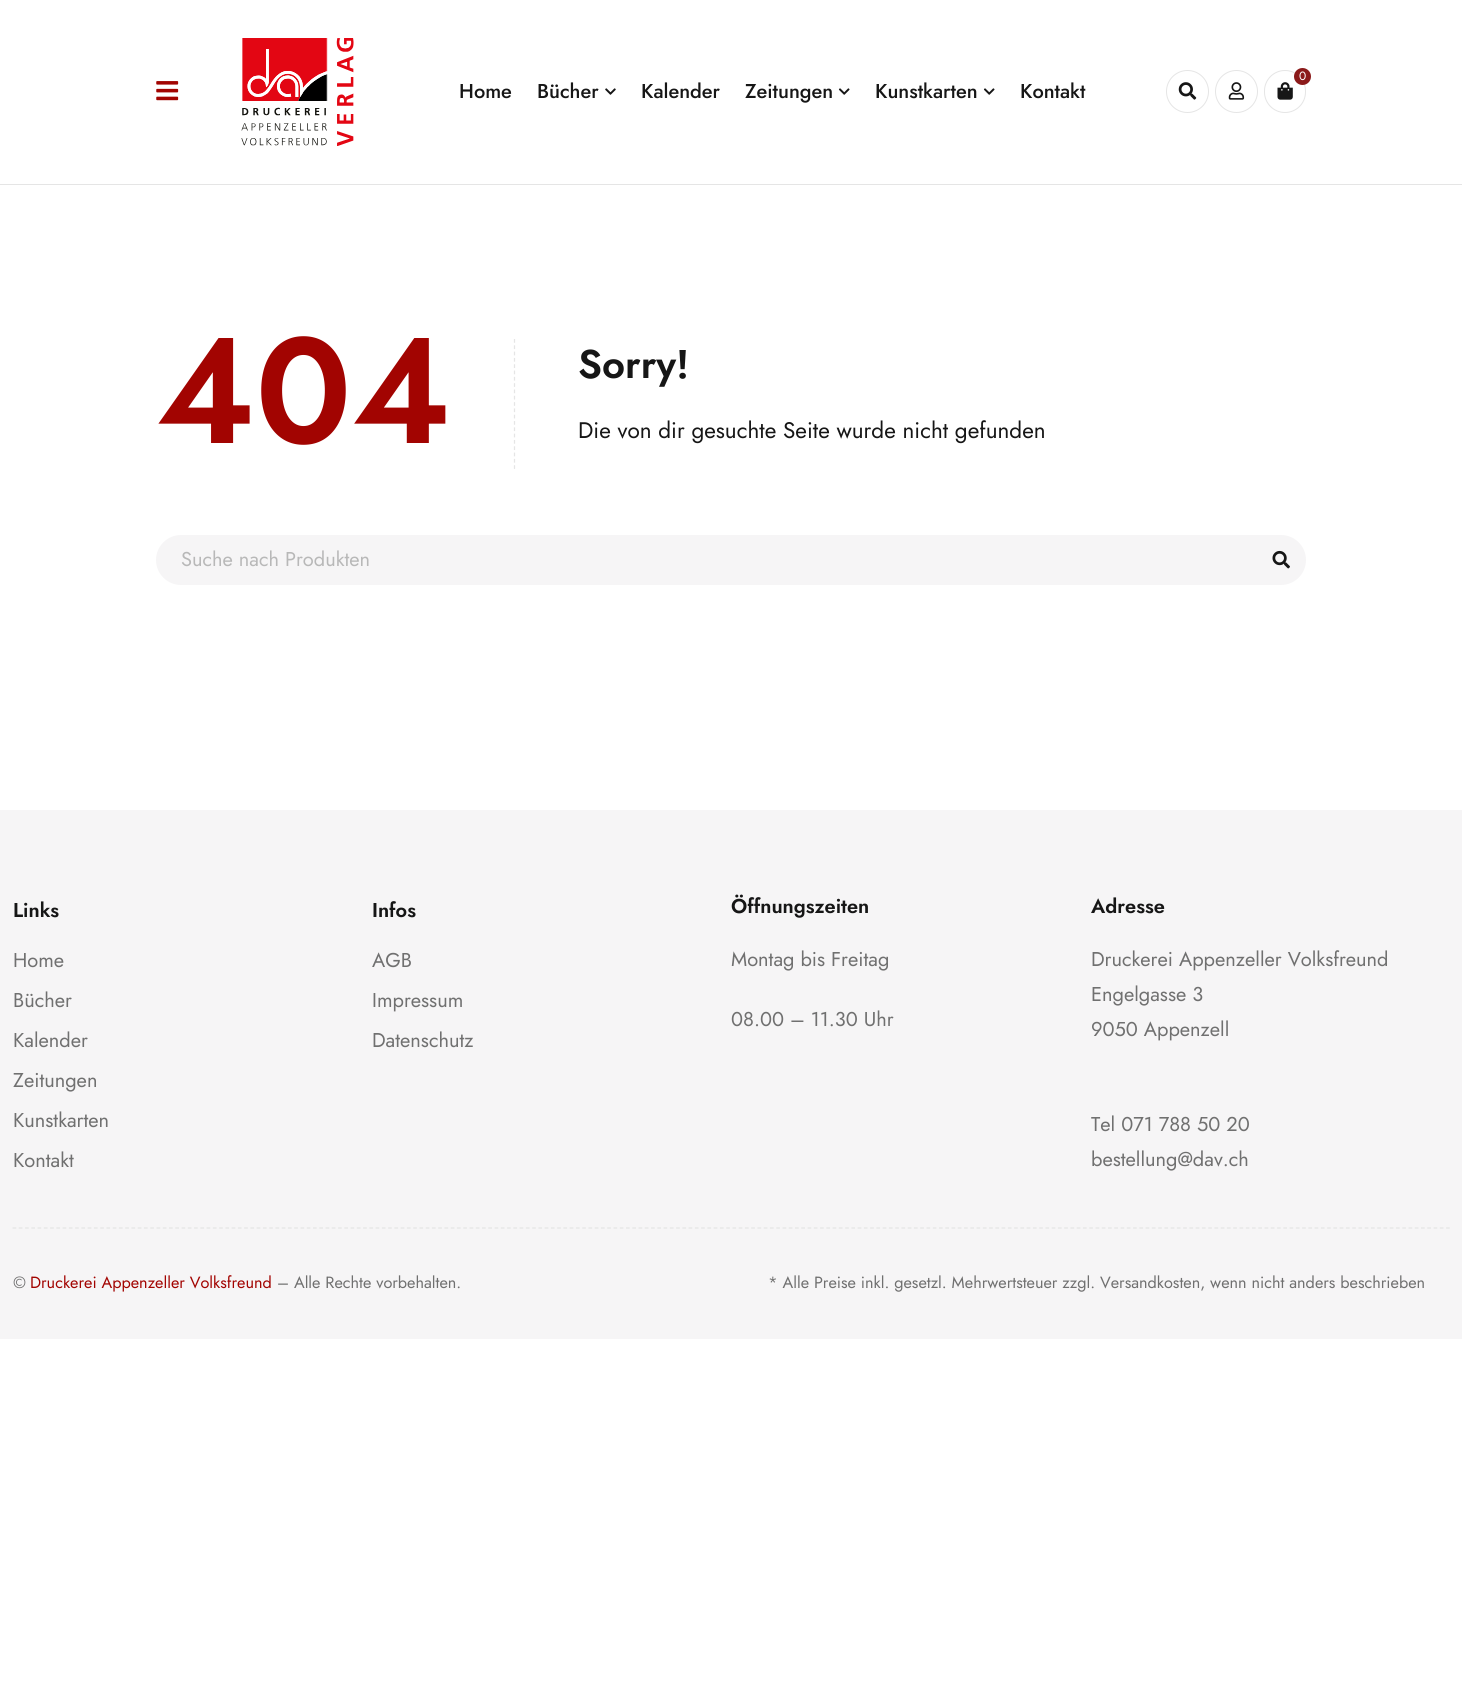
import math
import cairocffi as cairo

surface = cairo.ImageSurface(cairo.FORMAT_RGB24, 1462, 1700)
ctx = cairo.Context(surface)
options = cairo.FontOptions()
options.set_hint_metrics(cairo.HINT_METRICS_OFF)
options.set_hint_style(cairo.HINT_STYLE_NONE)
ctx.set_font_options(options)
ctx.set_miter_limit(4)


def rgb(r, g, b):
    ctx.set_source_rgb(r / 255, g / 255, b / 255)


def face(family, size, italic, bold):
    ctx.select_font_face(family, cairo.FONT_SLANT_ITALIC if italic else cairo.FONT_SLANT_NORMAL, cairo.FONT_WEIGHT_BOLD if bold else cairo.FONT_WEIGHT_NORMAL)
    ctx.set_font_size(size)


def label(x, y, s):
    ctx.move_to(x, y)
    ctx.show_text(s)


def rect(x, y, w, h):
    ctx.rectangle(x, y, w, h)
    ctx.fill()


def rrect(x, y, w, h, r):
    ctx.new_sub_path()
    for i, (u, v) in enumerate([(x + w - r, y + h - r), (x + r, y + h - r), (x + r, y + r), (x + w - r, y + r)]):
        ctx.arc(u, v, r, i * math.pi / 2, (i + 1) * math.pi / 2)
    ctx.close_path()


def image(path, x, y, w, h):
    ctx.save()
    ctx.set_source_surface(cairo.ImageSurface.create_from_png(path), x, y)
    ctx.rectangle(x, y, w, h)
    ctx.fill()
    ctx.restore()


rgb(255, 255, 255)
ctx.paint()
image('image0.png', 156, 81, 23, 20)
image('image1.png', 241, 38, 113, 108)
ctx.arc(1187.5, 91.5, 21, 0, 2 * math.pi)
rgb(229, 229, 229)
ctx.set_line_width(1)
ctx.stroke()
image('image2.png', 1178, 82, 19, 18)
ctx.arc(1236.5, 91.5, 21, 0, 2 * math.pi)
ctx.stroke()
image('image3.png', 1228, 82, 17, 18)
rrect(1264.5, 70.5, 41, 42, 20.5)
ctx.stroke()
rgb(139, 26, 26)
ctx.arc(1302.5, 76.5, 8.5, 0, 2 * math.pi)
ctx.fill()
face('Jost', 12, 0, 0)
rgb(255, 255, 255)
label(1299, 80, '0')
image('image4.png', 1277, 82, 16, 18)
face('Jost Medium', 20, 0, 0)
rgb(22, 22, 22)
label(459, 98, 'Home')
label(537, 98, 'Bücher')
image('image5.png', 605, 88, 11, 7)
label(641, 98, 'Kalender')
label(745, 98, 'Zeitungen')
image('image6.png', 838, 88, 12, 7)
label(875, 98, 'Kunstkarten')
image('image6.png', 983, 88, 12, 7)
label(1020, 98, 'Kontakt')
rgb(229, 229, 229)
rect(0, 184, 1462, 1)
face('Jost SemiBold', 150, 0, 0)
rgb(162, 4, 1)
label(156, 443, '404')
ctx.new_path()
ctx.move_to(514.5, 339)
ctx.line_to(514.5, 469)
rgb(229, 229, 229)
ctx.set_line_width(1.2)
ctx.set_dash([3.75, 2.56])
ctx.stroke()
face('Jost SemiBold', 40, 0, 0)
rgb(22, 22, 22)
label(578, 378, 'Sorry!')
face('Jost', 22.5, 0, 0)
label(578, 438, 'Die von dir gesuchte Seite wurde nicht gefunden')
rgb(246, 245, 246)
rrect(156, 535, 1150, 50, 25)
ctx.fill()
face('Jost', 20, 0, 0)
rgb(184, 184, 184)
label(181, 566, 'Suche nach Produkten')
image('image7.png', 1272, 550, 18, 19)
rgb(246, 245, 246)
rect(0, 810, 1462, 529)
face('Jost SemiBold', 20, 0, 0)
rgb(22, 22, 22)
label(13, 917, 'Links')
face('Jost', 20, 0, 0)
rgb(112, 112, 112)
label(13, 967, 'Home')
label(13, 1007, 'Bücher')
label(13, 1047, 'Kalender')
label(13, 1087, 'Zeitungen')
label(13, 1127, 'Kunstkarten')
label(13, 1167, 'Kontakt')
face('Jost SemiBold', 20, 0, 0)
rgb(22, 22, 22)
label(372, 917, 'Infos')
face('Jost', 20, 0, 0)
rgb(112, 112, 112)
label(372, 967, 'AGB')
label(372, 1007, 'Impressum')
label(372, 1047, 'Datenschutz')
face('Jost SemiBold', 20, 0, 0)
rgb(22, 22, 22)
label(731, 913, 'Öffnungszeiten')
face('Jost', 20, 0, 0)
rgb(112, 112, 112)
label(731, 966, 'Montag bis Freitag')
label(731, 1026, '08.00 – 11.30 Uhr')
face('Jost SemiBold', 20, 0, 0)
rgb(22, 22, 22)
label(1091, 913, 'Adresse')
face('Jost', 20, 0, 0)
rgb(112, 112, 112)
label(1091, 966, 'Druckerei Appenzeller Volksfreund')
label(1091, 1001, 'Engelgasse 3')
label(1091, 1036, '9050 Appenzell')
label(1091, 1131, 'Tel 071 788 50 20')
label(1091, 1166, 'bestellung@dav.ch')
ctx.new_path()
ctx.move_to(12.5, 1228)
ctx.line_to(1450, 1228)
rgb(229, 229, 229)
ctx.set_dash([3.75, 2.51])
ctx.stroke()
face('Jost', 16.25, 0, 0)
rgb(112, 112, 112)
label(13, 1288, '©')
rgb(162, 4, 1)
label(30, 1288, 'Druckerei Appenzeller Volksfreund')
rgb(112, 112, 112)
label(277, 1288, '– Alle Rechte vorbehalten.')
label(768, 1288, '* Alle Preise inkl. gesetzl. Mehrwertsteuer zzgl. Versandkosten, wenn nicht anders beschrieben')
surface.write_to_png('render.png')
